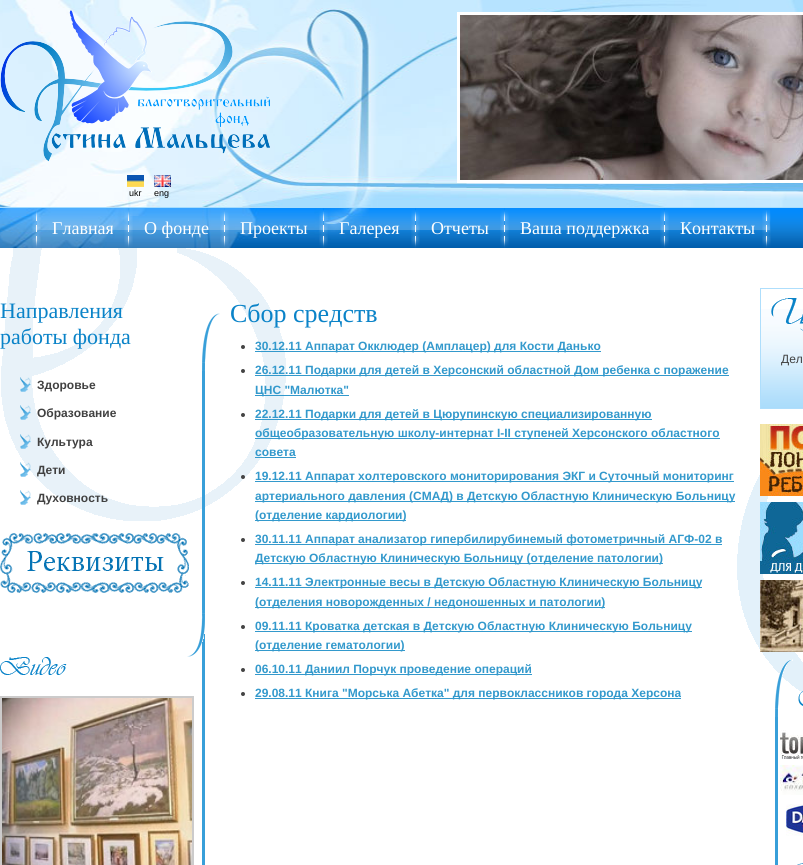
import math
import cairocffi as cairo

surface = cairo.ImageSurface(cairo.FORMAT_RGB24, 803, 865)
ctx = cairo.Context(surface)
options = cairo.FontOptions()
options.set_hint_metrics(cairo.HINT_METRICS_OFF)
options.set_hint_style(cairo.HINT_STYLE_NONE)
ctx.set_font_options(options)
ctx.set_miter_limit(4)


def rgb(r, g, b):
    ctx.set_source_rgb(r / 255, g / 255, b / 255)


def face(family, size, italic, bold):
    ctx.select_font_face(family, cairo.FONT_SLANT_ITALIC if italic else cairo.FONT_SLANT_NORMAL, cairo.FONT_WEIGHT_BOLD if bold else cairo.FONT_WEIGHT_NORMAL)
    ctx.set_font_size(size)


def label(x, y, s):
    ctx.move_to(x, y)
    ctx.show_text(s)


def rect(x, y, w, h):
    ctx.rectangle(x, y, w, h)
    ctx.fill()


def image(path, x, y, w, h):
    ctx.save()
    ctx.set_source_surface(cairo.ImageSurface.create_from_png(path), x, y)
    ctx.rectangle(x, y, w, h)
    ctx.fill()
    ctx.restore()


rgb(255, 255, 255)
ctx.paint()
rgb(165, 221, 255)
rect(0, 207, 803, 1)
image('image0.png', 0, 0, 803, 207)
image('image1.png', 0, 10, 270, 152)
ctx.rectangle(458.5, 13.5, 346, 168)
rgb(255, 255, 255)
ctx.set_line_width(3)
ctx.stroke()
image('image2.png', 460, 15, 343, 165)
image('image3.png', 127, 175, 17, 12)
face('Liberation Sans', 9, 0, 0)
rgb(0, 0, 0)
label(129, 196, 'ukr')
image('image4.png', 154, 175, 17, 12)
label(154, 196, 'eng')
image('image5.png', 369, 208, 434, 40)
image('image6.png', 0, 208, 369, 40)
image('image7.png', 32, 210, 9, 38)
image('image8.png', 37, 208, 91, 22)
face('Liberation Serif', 18, 0, 0)
rgb(255, 255, 255)
label(52, 234, 'Главная')
image('image9.png', 124, 210, 9, 38)
image('image10.png', 129, 208, 95, 22)
label(144, 234, 'О фонде')
image('image11.png', 220, 210, 9, 38)
image('image12.png', 225, 208, 98, 22)
label(240, 234, 'Проекты')
image('image13.png', 319, 210, 9, 38)
image('image14.png', 324, 208, 91, 22)
label(339, 234, 'Галерея')
image('image15.png', 411, 210, 9, 38)
image('image16.png', 416, 208, 88, 22)
label(431, 234, 'Отчеты')
image('image15.png', 500, 210, 9, 38)
image('image17.png', 505, 208, 159, 22)
label(520, 234, 'Ваша поддержка')
image('image15.png', 660, 210, 9, 38)
image('image18.png', 665, 208, 105, 22)
label(680, 234, 'Контакты')
image('image19.png', 762, 210, 9, 38)
image('image20.png', 737, 475, 66, 218)
image('image21.png', 1, 248, 285, 273)
face('Liberation Serif', 22, 0, 0)
rgb(10, 131, 200)
label(0, 318, 'Направления')
label(0, 344, 'работы фонда')
image('image22.png', 202, 313, 18, 58)
rgb(56, 159, 217)
rect(202, 371, 3, 494)
image('image23.png', 20, 377, 11, 15)
face('Liberation Sans', 12, 0, 1)
rgb(65, 65, 65)
label(37, 389, 'Здоровье')
image('image23.png', 20, 405, 11, 15)
label(37, 417, 'Образование')
image('image23.png', 20, 434, 11, 15)
label(37, 446, 'Культура')
image('image24.png', 20, 462, 11, 15)
label(37, 474, 'Дети')
image('image25.png', 20, 490, 11, 15)
label(37, 502, 'Духовность')
image('image26.png', 0, 533, 189, 60)
image('image27.png', 187, 610, 18, 47)
image('image28.png', 0, 657, 67, 18)
ctx.rectangle(1, 697, 192, 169)
rgb(204, 203, 203)
ctx.set_line_width(2)
ctx.stroke()
image('image29.png', 2, 698, 190, 167)
face('Liberation Serif', 26, 0, 0)
rgb(10, 131, 200)
label(230, 322, 'Cбор средств')
rgb(68, 68, 68)
ctx.new_path()
ctx.arc(243, 347, 2, 0, 2 * math.pi)
ctx.fill()
rgb(51, 153, 204)
rect(255, 351, 346, 1)
face('Liberation Sans', 12, 0, 1)
label(255, 350, '30.12.11 Аппарат Окклюдер (Амплацер) для Кости Данько')
rgb(68, 68, 68)
ctx.new_path()
ctx.arc(243, 371, 2, 0, 2 * math.pi)
ctx.fill()
rgb(51, 153, 204)
rect(255, 375, 474, 1)
label(255, 374, '26.12.11 Подарки для детей в Херсонский областной Дом ребенка с поражение')
rect(255, 395, 94, 1)
label(255, 394, 'ЦНС "Малютка"')
rgb(68, 68, 68)
ctx.new_path()
ctx.arc(243, 415, 2, 0, 2 * math.pi)
ctx.fill()
rgb(51, 153, 204)
rect(255, 419, 397, 1)
label(255, 418, '22.12.11 Подарки для детей в Цюрупинскую специализированную')
rect(255, 438, 465, 1)
label(255, 437, 'общеобразовательную школу-интернат І-ІІ ступеней Херсонского областного')
label(255, 456, 'совета')
rect(255, 457, 41, 1)
rgb(68, 68, 68)
ctx.new_path()
ctx.arc(243, 477, 2, 0, 2 * math.pi)
ctx.fill()
rgb(51, 153, 204)
rect(255, 481, 479, 1)
label(255, 480, '19.12.11 Аппарат холтеровского мониторирования ЭКГ и Суточный мониторинг')
rect(255, 501, 480, 1)
label(255, 500, 'артериального давления (СМАД) в Детскую Областную Клиническую Больницу')
rect(255, 520, 151, 1)
label(255, 519, '(отделение кардиологии)')
rgb(68, 68, 68)
ctx.new_path()
ctx.arc(243, 540, 2, 0, 2 * math.pi)
ctx.fill()
rgb(51, 153, 204)
rect(255, 544, 467, 1)
label(255, 543, '30.11.11 Аппарат анализатор гипербилирубинемый фотометричный АГФ-02 в')
rect(255, 563, 408, 1)
label(255, 562, 'Детскую Областную Клиническую Больницу (отделение патологии)')
rgb(68, 68, 68)
ctx.new_path()
ctx.arc(243, 583, 2, 0, 2 * math.pi)
ctx.fill()
rgb(51, 153, 204)
rect(255, 587, 447, 1)
label(255, 586, '14.11.11 Электронные весы в Детскую Областную Клиническую Больницу')
rect(255, 607, 350, 1)
label(255, 606, '(отделения новорожденных / недоношенных и патологии)')
rgb(68, 68, 68)
ctx.new_path()
ctx.arc(243, 627, 2, 0, 2 * math.pi)
ctx.fill()
rgb(51, 153, 204)
rect(255, 631, 437, 1)
label(255, 630, '09.11.11 Кроватка детская в Детскую Областную Клиническую Больницу')
rect(255, 650, 150, 1)
label(255, 649, '(отделение гематологии)')
rgb(68, 68, 68)
ctx.new_path()
ctx.arc(243, 670, 2, 0, 2 * math.pi)
ctx.fill()
rgb(51, 153, 204)
rect(255, 674, 277, 1)
label(255, 673, '06.10.11 Даниил Порчук проведение операций')
rgb(68, 68, 68)
ctx.new_path()
ctx.arc(243, 694, 2, 0, 2 * math.pi)
ctx.fill()
rgb(51, 153, 204)
rect(255, 698, 426, 1)
label(255, 697, '29.08.11 Книга "Морська Абетка" для первоклассников города Херсона')
image('image30.png', 761, 309, 42, 99)
ctx.rectangle(760.5, 288.5, 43, 120)
rgb(174, 222, 252)
ctx.set_line_width(1)
ctx.stroke()
image('image31.png', 771, 298, 32, 33)
face('Liberation Sans', 12, 0, 0)
rgb(65, 65, 65)
label(781, 363, 'Дел')
image('image32.png', 760, 424, 43, 72)
image('image33.png', 760, 502, 43, 72)
image('image34.png', 760, 580, 43, 72)
image('image35.png', 775, 659, 18, 58)
image('image36.png', 798, 691, 5, 15)
rgb(56, 159, 217)
rect(775, 717, 3, 148)
image('image37.png', 780, 730, 23, 29)
image('image38.png', 780, 765, 23, 30)
image('image39.png', 786, 804, 17, 32)
image('image40.png', 797, 863, 6, 2)
surface.write_to_png('render.png')
